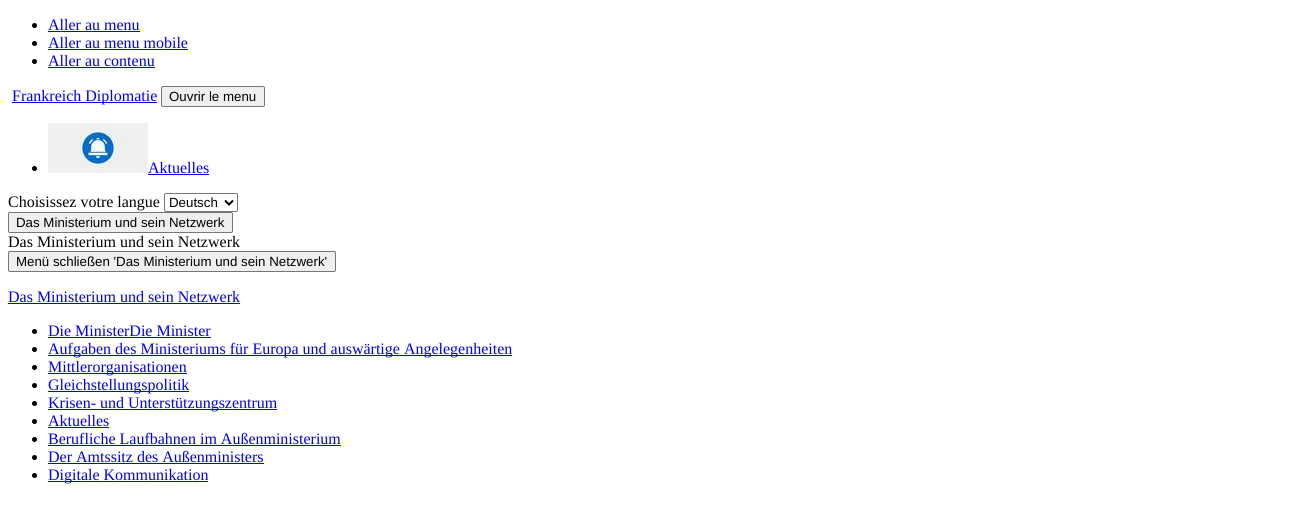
import math
import cairocffi as cairo

surface = cairo.ImageSurface(cairo.FORMAT_RGB24, 1290, 506)
ctx = cairo.Context(surface)
options = cairo.FontOptions()
options.set_hint_metrics(cairo.HINT_METRICS_OFF)
options.set_hint_style(cairo.HINT_STYLE_NONE)
ctx.set_font_options(options)
ctx.set_miter_limit(4)


def rgb(r, g, b):
    ctx.set_source_rgb(r / 255, g / 255, b / 255)


def face(family, size, italic, bold):
    ctx.select_font_face(family, cairo.FONT_SLANT_ITALIC if italic else cairo.FONT_SLANT_NORMAL, cairo.FONT_WEIGHT_BOLD if bold else cairo.FONT_WEIGHT_NORMAL)
    ctx.set_font_size(size)


def label(x, y, s):
    ctx.move_to(x, y)
    ctx.show_text(s)


def rect(x, y, w, h):
    ctx.rectangle(x, y, w, h)
    ctx.fill()


def rrect(x, y, w, h, r):
    ctx.new_sub_path()
    for i, (u, v) in enumerate([(x + w - r, y + h - r), (x + r, y + h - r), (x + r, y + r), (x + w - r, y + r)]):
        ctx.arc(u, v, r, i * math.pi / 2, (i + 1) * math.pi / 2)
    ctx.close_path()


def image(path, x, y, w, h):
    ctx.save()
    ctx.set_source_surface(cairo.ImageSurface.create_from_png(path), x, y)
    ctx.rectangle(x, y, w, h)
    ctx.fill()
    ctx.restore()


rgb(255, 255, 255)
ctx.paint()
rgb(0, 0, 0)
ctx.arc(34.5, 25.5, 2.5, 0, 2 * math.pi)
ctx.fill()
face('Liberation Serif', 16, 0, 0)
rgb(0, 0, 238)
label(48, 30, 'Aller au menu')
rect(48, 31, 92, 1)
rgb(0, 0, 0)
ctx.new_path()
ctx.arc(34.5, 43.5, 2.5, 0, 2 * math.pi)
ctx.fill()
rgb(0, 0, 238)
label(48, 48, 'Aller au menu mobile')
rect(48, 49, 140, 1)
rgb(0, 0, 0)
ctx.new_path()
ctx.arc(34.5, 61.5, 2.5, 0, 2 * math.pi)
ctx.fill()
rgb(0, 0, 238)
label(48, 66, 'Aller au contenu')
rect(48, 67, 107, 1)
rect(12, 102, 145, 1)
label(12, 101, 'Frankreich Diplomatie')
rgb(239, 239, 239)
rrect(161.5, 86.5, 103, 20, 1.5)
ctx.fill_preserve()
rgb(118, 118, 118)
ctx.set_line_width(1)
ctx.stroke()
face('Liberation Sans', 13.3, 0, 0)
rgb(0, 0, 0)
label(169, 101, 'Ouvrir le menu')
ctx.new_path()
ctx.arc(34.5, 168.5, 2.5, 0, 2 * math.pi)
ctx.fill()
image('image0.png', 48, 123, 100, 50)
face('Liberation Serif', 16, 0, 0)
rgb(0, 0, 238)
label(148, 173, 'Aktuelles')
rect(148, 174, 61, 1)
rgb(0, 0, 0)
label(8, 207, 'Choisissez votre langue')
rrect(164.5, 193.5, 73, 18, 1.5)
rgb(118, 118, 118)
ctx.stroke()
ctx.new_path()
ctx.move_to(225, 200.5)
ctx.line_to(229, 204.5)
ctx.line_to(233, 200.5)
rgb(0, 0, 0)
ctx.set_line_width(2)
ctx.stroke()
face('Liberation Sans', 13.3, 0, 0)
label(169, 207, 'Deutsch')
rgb(239, 239, 239)
rrect(8.5, 212.5, 224, 20, 1.5)
ctx.fill_preserve()
rgb(118, 118, 118)
ctx.set_line_width(1)
ctx.stroke()
rgb(0, 0, 0)
label(16, 227, 'Das Ministerium und sein Netzwerk')
face('Liberation Serif', 16, 0, 0)
label(8, 247, 'Das Ministerium und sein Netzwerk')
rgb(239, 239, 239)
rrect(8.5, 251.5, 327, 20, 1.5)
ctx.fill_preserve()
rgb(118, 118, 118)
ctx.stroke()
face('Liberation Sans', 13.3, 0, 0)
rgb(0, 0, 0)
label(16, 266, 'Menü schließen \'Das Ministerium und sein Netzwerk\'')
face('Liberation Serif', 16, 0, 0)
rgb(0, 0, 238)
label(8, 302, 'Das Ministerium und sein Netzwerk')
rect(8, 303, 232, 1)
rgb(0, 0, 0)
ctx.new_path()
ctx.arc(34.5, 331.5, 2.5, 0, 2 * math.pi)
ctx.fill()
rgb(0, 0, 238)
label(48, 336, 'Die MinisterDie Minister')
rect(48, 337, 163, 1)
rgb(0, 0, 0)
ctx.new_path()
ctx.arc(34.5, 349.5, 2.5, 0, 2 * math.pi)
ctx.fill()
rgb(0, 0, 238)
rect(48, 355, 464, 1)
label(48, 354, 'Aufgaben des Ministeriums für Europa und auswärtige Angelegenheiten')
rgb(0, 0, 0)
ctx.new_path()
ctx.arc(34.5, 367.5, 2.5, 0, 2 * math.pi)
ctx.fill()
rgb(0, 0, 238)
rect(48, 373, 139, 1)
label(48, 372, 'Mittlerorganisationen')
rgb(0, 0, 0)
ctx.new_path()
ctx.arc(34.5, 385.5, 2.5, 0, 2 * math.pi)
ctx.fill()
rgb(0, 0, 238)
rect(48, 391, 141, 1)
label(48, 390, 'Gleichstellungspolitik')
rgb(0, 0, 0)
ctx.new_path()
ctx.arc(34.5, 403.5, 2.5, 0, 2 * math.pi)
ctx.fill()
rgb(0, 0, 238)
rect(48, 409, 229, 1)
label(48, 408, 'Krisen- und Unterstützungszentrum')
rgb(0, 0, 0)
ctx.new_path()
ctx.arc(34.5, 421.5, 2.5, 0, 2 * math.pi)
ctx.fill()
rgb(0, 0, 238)
label(48, 426, 'Aktuelles')
rect(48, 427, 61, 1)
rgb(0, 0, 0)
ctx.new_path()
ctx.arc(34.5, 439.5, 2.5, 0, 2 * math.pi)
ctx.fill()
rgb(0, 0, 238)
label(48, 444, 'Berufliche Laufbahnen im Außenministerium')
rect(48, 445, 293, 1)
rgb(0, 0, 0)
ctx.new_path()
ctx.arc(34.5, 457.5, 2.5, 0, 2 * math.pi)
ctx.fill()
rgb(0, 0, 238)
label(48, 462, 'Der Amtssitz des Außenministers')
rect(48, 463, 216, 1)
rgb(0, 0, 0)
ctx.new_path()
ctx.arc(34.5, 475.5, 2.5, 0, 2 * math.pi)
ctx.fill()
rgb(0, 0, 238)
rect(48, 481, 160, 1)
label(48, 480, 'Digitale Kommunikation')
surface.write_to_png('render.png')
